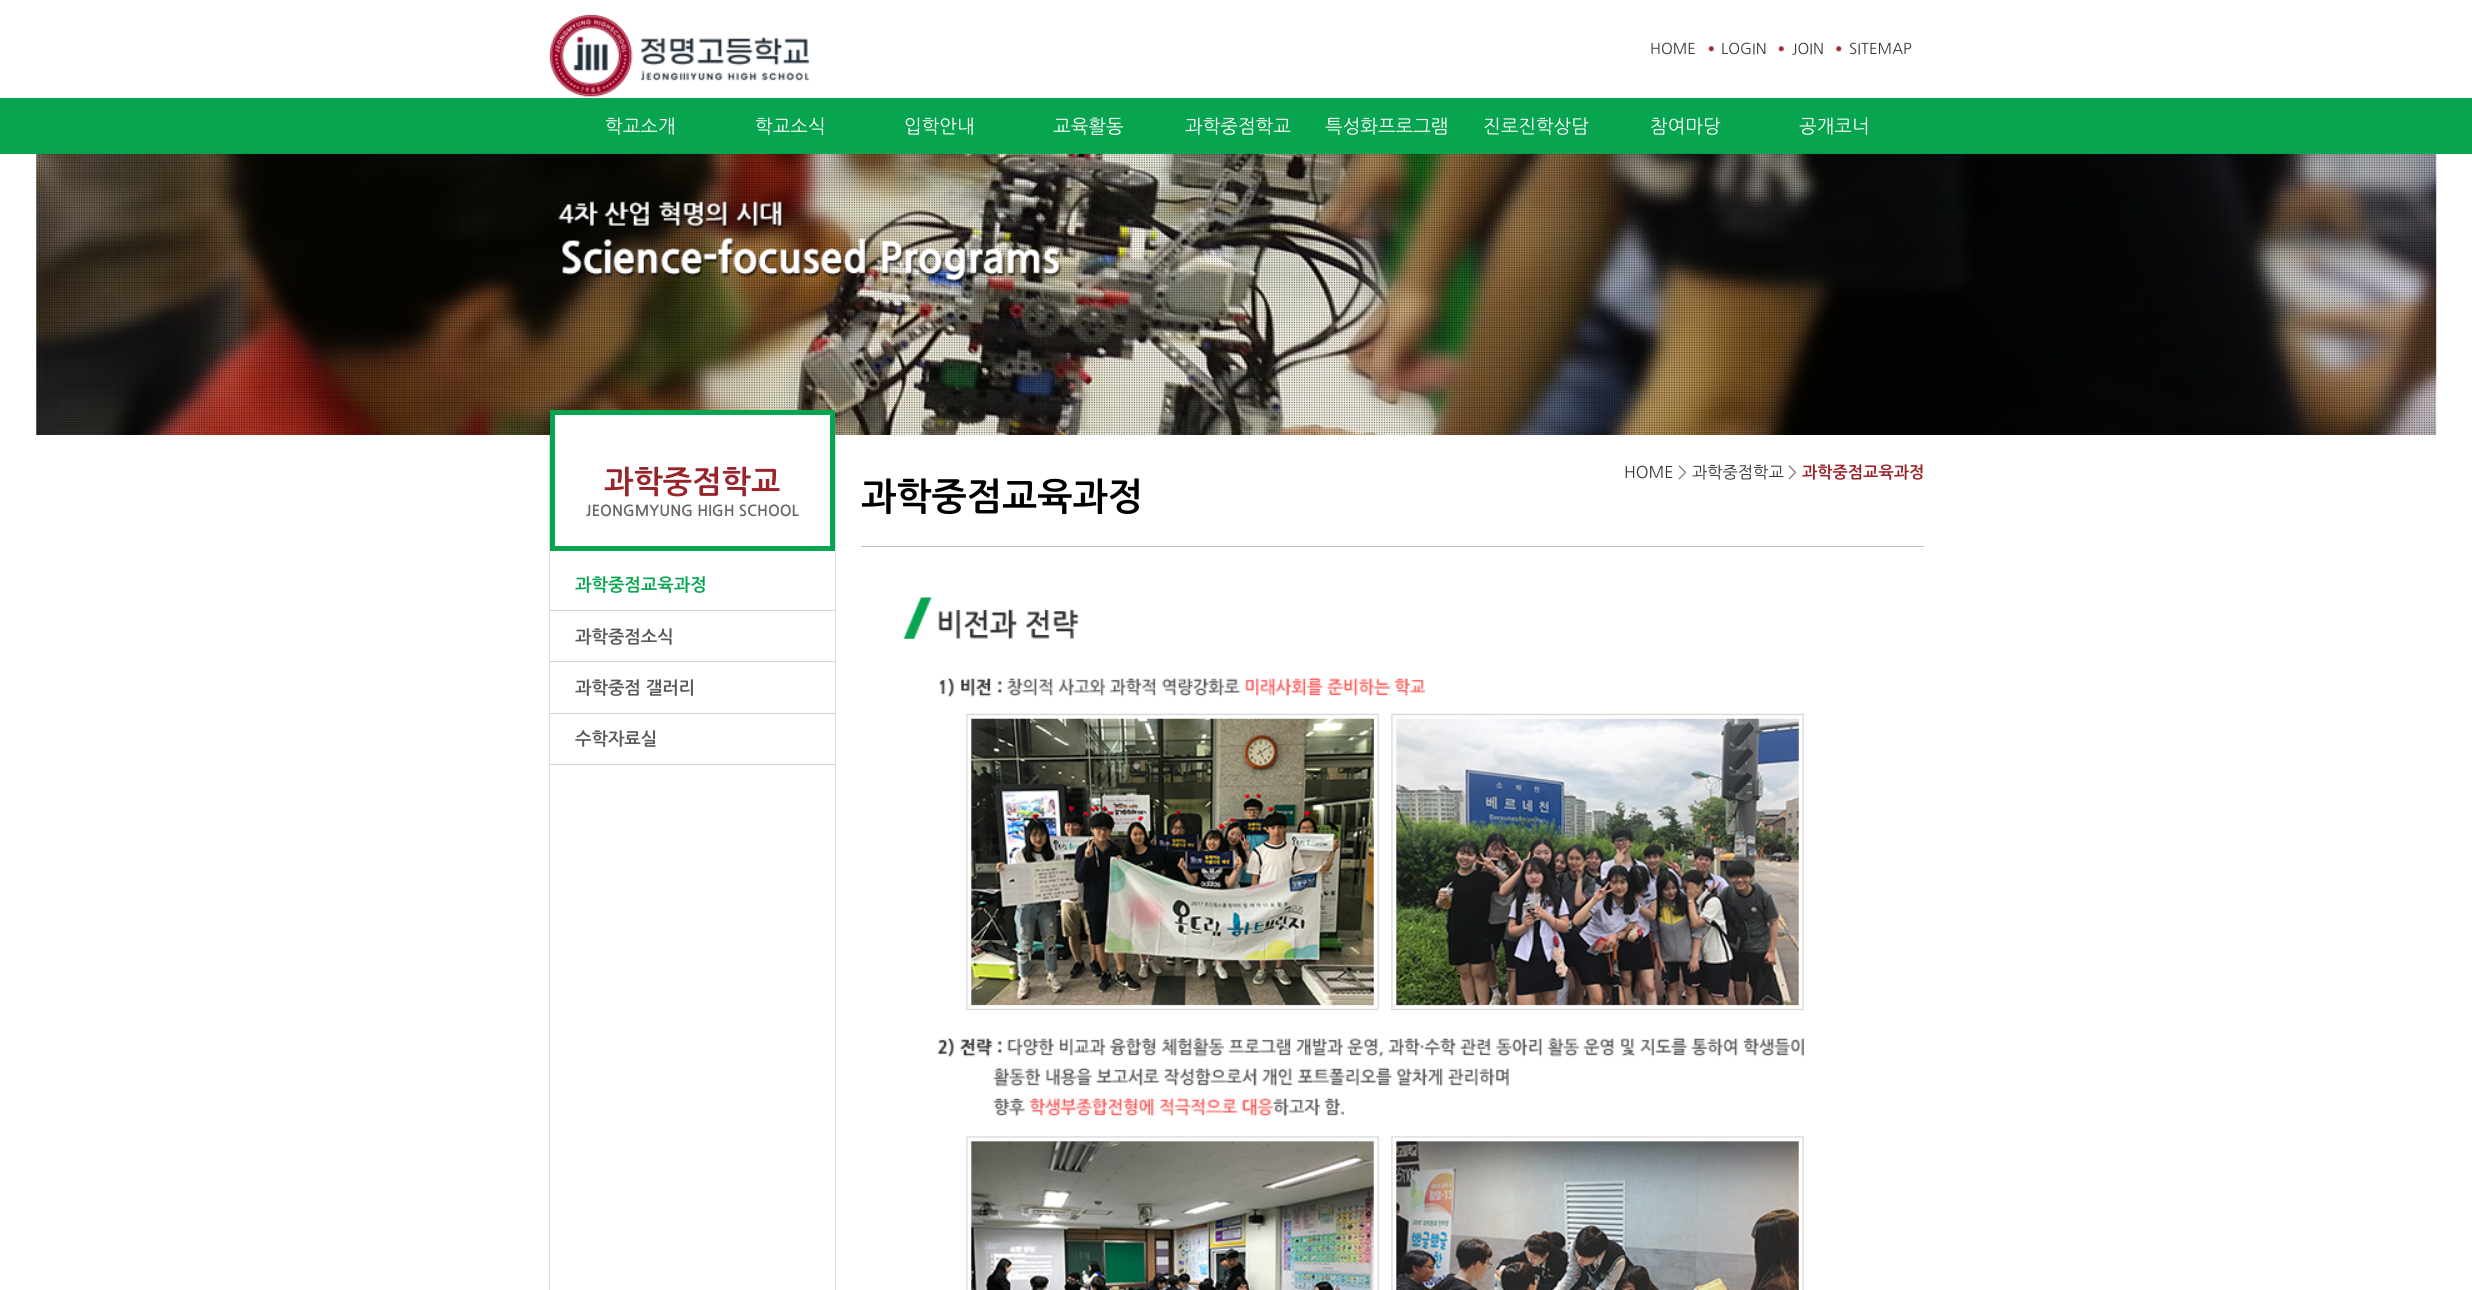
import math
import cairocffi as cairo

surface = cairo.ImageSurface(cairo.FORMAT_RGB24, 2472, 1290)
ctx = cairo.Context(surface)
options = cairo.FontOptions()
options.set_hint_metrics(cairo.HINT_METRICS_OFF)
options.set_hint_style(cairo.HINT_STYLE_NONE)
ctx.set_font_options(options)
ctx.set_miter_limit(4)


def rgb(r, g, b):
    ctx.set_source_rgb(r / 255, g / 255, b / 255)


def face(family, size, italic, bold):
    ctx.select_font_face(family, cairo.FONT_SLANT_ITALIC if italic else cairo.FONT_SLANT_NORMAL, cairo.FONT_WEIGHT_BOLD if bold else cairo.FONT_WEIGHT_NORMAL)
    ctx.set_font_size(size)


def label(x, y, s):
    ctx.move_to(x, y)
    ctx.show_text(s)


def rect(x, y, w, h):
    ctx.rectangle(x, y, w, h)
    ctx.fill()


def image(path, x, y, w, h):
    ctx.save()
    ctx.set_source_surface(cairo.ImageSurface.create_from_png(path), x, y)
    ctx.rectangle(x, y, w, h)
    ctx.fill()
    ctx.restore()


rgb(255, 255, 255)
ctx.paint()
image('image0.png', 549, 14, 260, 83)
face('NanumGothic', 15, 0, 0)
rgb(51, 51, 51)
label(1650, 54, 'HOME')
image('image1.png', 1708, 46, 6, 6)
label(1721, 54, 'LOGIN')
image('image1.png', 1778, 46, 6, 6)
label(1792, 54, 'JOIN')
image('image2.png', 1836, 46, 6, 6)
label(1849, 54, 'SITEMAP')
rgb(7, 165, 79)
rect(0, 98, 2472, 56)
face('NanumGothic', 18.75, 0, 0)
rgb(255, 255, 255)
label(605, 133, '학교소개')
label(755, 133, '학교소식')
label(904, 133, '입학안내')
label(1053, 133, '교육활동')
label(1185, 133, '과학중점학교')
label(1325, 133, '특성화프로그램')
label(1483, 133, '진로진학상담')
label(1650, 133, '참여마당')
label(1799, 133, '공개코너')
image('image3.png', 36, 153, 2401, 282)
rgb(217, 221, 224)
rect(835, 435, 1, 855)
rect(549, 435, 1, 855)
rgb(255, 255, 255)
rect(555, 415, 275, 20)
ctx.rectangle(552.5, 412.5, 280, 136)
rgb(7, 165, 79)
ctx.set_line_width(5)
ctx.stroke()
face('NanumGothic', 31.25, 0, 1)
rgb(152, 36, 42)
label(604, 493, '과학중점학교')
face('NanumGothic', 15, 0, 1)
rgb(102, 102, 102)
label(586, 516, 'JEONGMYUNG HIGH SCHOOL')
rgb(210, 210, 210)
rect(550, 610, 285, 1)
face('NanumGothic', 17.5, 0, 1)
rgb(7, 165, 79)
label(575, 591, '과학중점교육과정')
rgb(210, 210, 210)
rect(550, 661, 285, 1)
rgb(89, 89, 89)
label(575, 643, '과학중점소식')
rgb(210, 210, 210)
rect(550, 713, 285, 1)
rgb(89, 89, 89)
label(575, 694, '과학중점 갤러리')
rgb(210, 210, 210)
rect(550, 764, 285, 1)
rgb(89, 89, 89)
label(575, 745, '수학자료실')
face('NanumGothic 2', 16.25, 0, 0)
rgb(51, 51, 51)
label(1624, 478, 'HOME')
rgb(102, 102, 102)
label(1678, 478, '>')
rgb(51, 51, 51)
label(1692, 478, '과학중점학교')
rgb(102, 102, 102)
label(1788, 478, '>')
face('NanumGothic', 16.25, 0, 1)
rgb(152, 36, 42)
label(1802, 478, '과학중점교육과정')
rgb(192, 192, 192)
rect(861, 546, 1063, 1)
face('NanumGothic', 37.5, 0, 1)
rgb(0, 0, 0)
label(861, 510, '과학중점교육과정')
image('image4.png', 903, 597, 901, 693)
surface.write_to_png('render.png')
